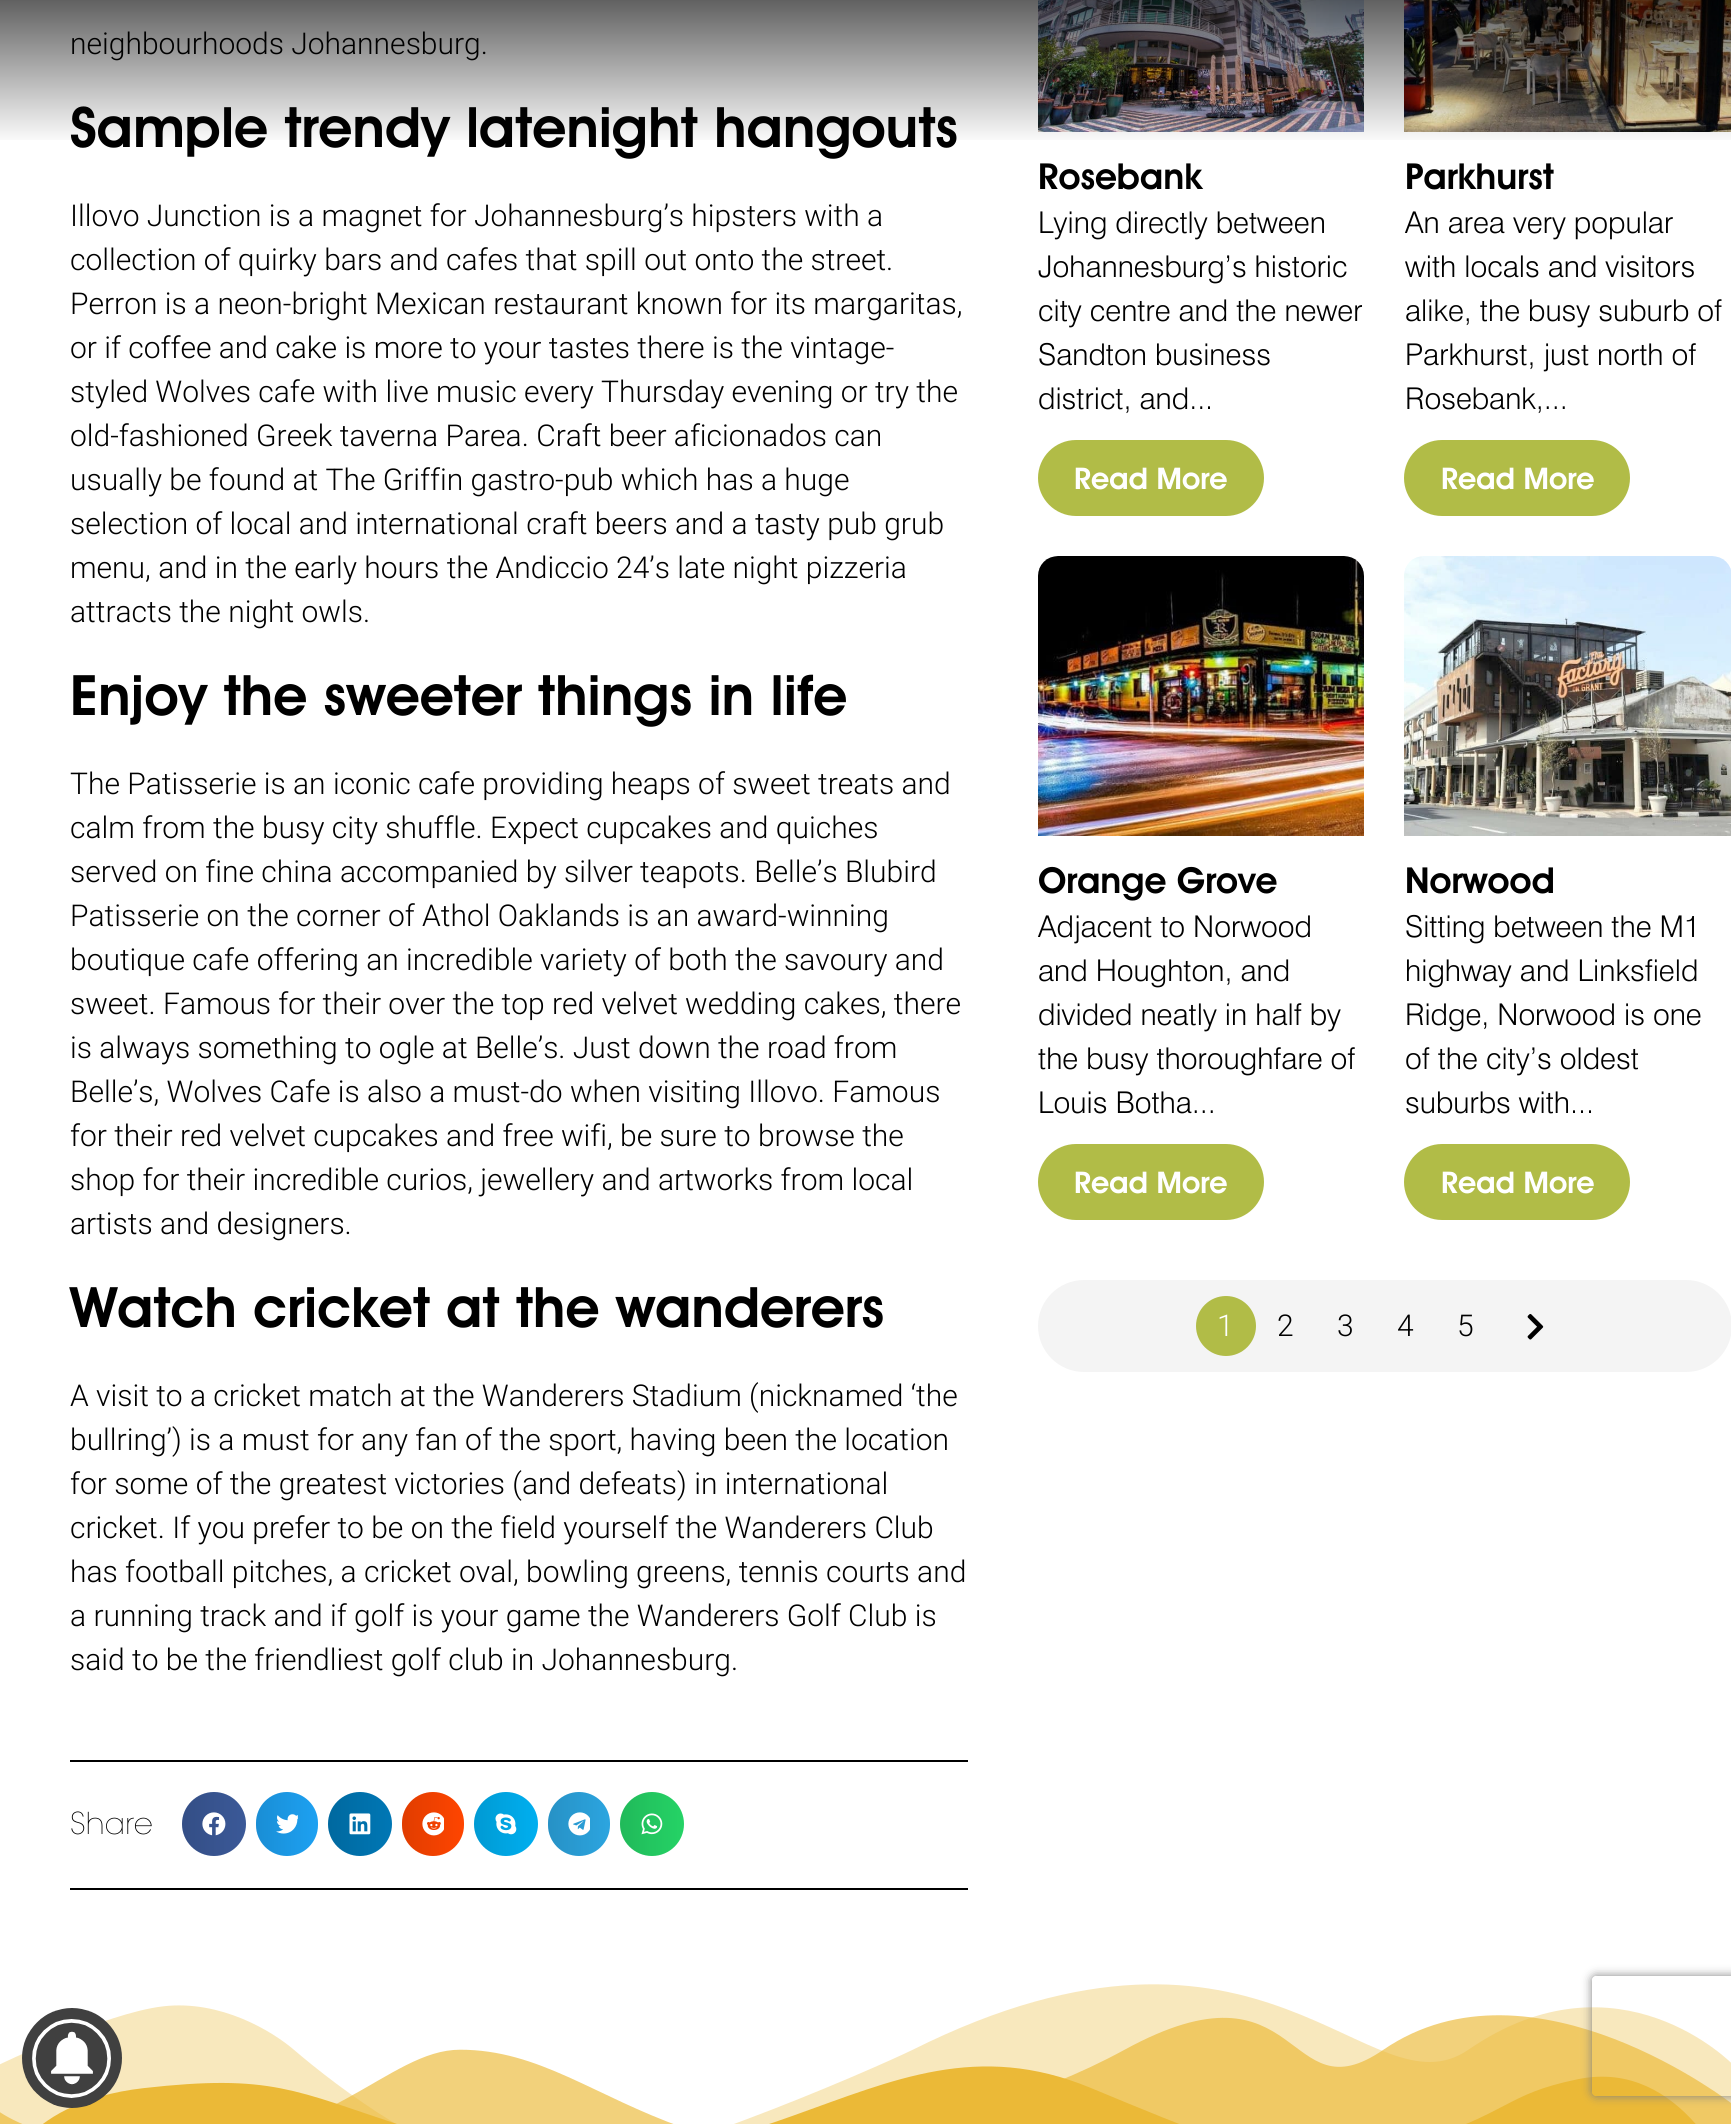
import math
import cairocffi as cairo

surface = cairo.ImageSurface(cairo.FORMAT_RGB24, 1731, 2124)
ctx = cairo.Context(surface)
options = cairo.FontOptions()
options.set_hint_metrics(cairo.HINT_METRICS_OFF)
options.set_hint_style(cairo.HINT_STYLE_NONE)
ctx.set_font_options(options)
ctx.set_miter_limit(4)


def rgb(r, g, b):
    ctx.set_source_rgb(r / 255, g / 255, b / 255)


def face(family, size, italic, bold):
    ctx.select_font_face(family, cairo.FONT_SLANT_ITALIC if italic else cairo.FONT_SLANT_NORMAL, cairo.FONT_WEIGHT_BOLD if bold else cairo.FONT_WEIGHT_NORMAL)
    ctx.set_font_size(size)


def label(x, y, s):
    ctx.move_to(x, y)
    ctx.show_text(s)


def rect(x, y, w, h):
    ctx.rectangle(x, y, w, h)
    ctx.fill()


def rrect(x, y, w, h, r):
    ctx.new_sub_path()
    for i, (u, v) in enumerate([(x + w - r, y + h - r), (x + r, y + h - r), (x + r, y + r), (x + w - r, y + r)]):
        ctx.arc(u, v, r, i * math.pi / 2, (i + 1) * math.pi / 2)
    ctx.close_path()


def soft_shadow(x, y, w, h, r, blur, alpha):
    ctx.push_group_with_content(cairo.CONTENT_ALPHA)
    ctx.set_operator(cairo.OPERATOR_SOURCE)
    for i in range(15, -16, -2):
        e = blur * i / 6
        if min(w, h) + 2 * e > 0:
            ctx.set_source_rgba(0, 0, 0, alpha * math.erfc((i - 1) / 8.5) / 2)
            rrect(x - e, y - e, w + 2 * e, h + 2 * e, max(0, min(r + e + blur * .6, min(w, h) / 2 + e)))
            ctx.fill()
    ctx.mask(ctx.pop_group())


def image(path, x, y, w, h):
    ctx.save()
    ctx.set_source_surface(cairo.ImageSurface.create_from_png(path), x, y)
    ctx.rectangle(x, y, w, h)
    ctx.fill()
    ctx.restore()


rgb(255, 255, 255)
ctx.paint()
face('Roboto Light', 30, 0, 0)
rgb(0, 0, 0)
label(70, 54, 'neighbourhoods Johannesburg.')
face('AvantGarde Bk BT', 56, 0, 1)
label(70, 147, 'Sample trendy latenight hangouts')
image('image7.png', 1038, 0, 326, 132)
image('image8.png', 1404, 0, 327, 132)
gradient = cairo.LinearGradient(866, 0, 866, 160)
gradient.add_color_stop_rgba(0, 0, 0, 0, 0.62)
gradient.add_color_stop_rgba(0.89, 0, 0, 0, 0.01)
ctx.set_source(gradient)
rect(0, 0, 1731, 140)
face('Roboto Light', 30, 0, 0)
rgb(0, 0, 0)
label(70, 226, 'Illovo Junction is a magnet for Johannesburg’s hipsters with a')
label(70, 270, 'collection of quirky bars and cafes that spill out onto the street.')
label(70, 314, 'Perron is a neon-bright Mexican restaurant known for its margaritas,')
label(70, 358, 'or if coffee and cake is more to your tastes there is the vintage-')
label(70, 402, 'styled Wolves cafe with live music every Thursday evening or try the')
label(70, 446, 'old-fashioned Greek taverna Parea. Craft beer aficionados can')
label(70, 490, 'usually be found at The Griffin gastro-pub which has a huge')
label(70, 534, 'selection of local and international craft beers and a tasty pub grub')
label(70, 578, 'menu, and in the early hours the Andiccio 24’s late night pizzeria')
label(70, 622, 'attracts the night owls.')
face('AvantGarde Bk BT', 56, 0, 1)
label(70, 715, 'Enjoy the sweeter things in life')
face('Roboto Light', 30, 0, 0)
label(70, 794, 'The Patisserie is an iconic cafe providing heaps of sweet treats and')
label(70, 838, 'calm from the busy city shuffle. Expect cupcakes and quiches')
label(70, 882, 'served on fine china accompanied by silver teapots. Belle’s Blubird')
label(70, 926, 'Patisserie on the corner of Athol Oaklands is an award-winning')
label(70, 970, 'boutique cafe offering an incredible variety of both the savoury and')
label(70, 1014, 'sweet. Famous for their over the top red velvet wedding cakes, there')
label(70, 1058, 'is always something to ogle at Belle’s. Just down the road from')
label(70, 1102, 'Belle’s, Wolves Cafe is also a must-do when visiting Illovo. Famous')
label(70, 1146, 'for their red velvet cupcakes and free wifi, be sure to browse the')
label(70, 1190, 'shop for their incredible curios, jewellery and artworks from local')
label(70, 1234, 'artists and designers.')
face('AvantGarde Bk BT', 56, 0, 1)
label(70, 1327, 'Watch cricket at the wanderers')
face('Roboto Light', 30, 0, 0)
label(70, 1406, 'A visit to a cricket match at the Wanderers Stadium (nicknamed ‘the')
label(70, 1450, 'bullring’) is a must for any fan of the sport, having been the location')
label(70, 1494, 'for some of the greatest victories (and defeats) in international')
label(70, 1538, 'cricket. If you prefer to be on the field yourself the Wanderers Club')
label(70, 1582, 'has football pitches, a cricket oval, bowling greens, tennis courts and')
label(70, 1626, 'a running track and if golf is your game the Wanderers Golf Club is')
label(70, 1670, 'said to be the friendliest golf club in Johannesburg.')
rect(70, 1760, 898, 2)
face('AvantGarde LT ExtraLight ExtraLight', 30, 0, 0)
label(70, 1834, 'Share')
rgb(59, 89, 152)
ctx.new_path()
ctx.arc(214, 1824, 32, 0, 2 * math.pi)
ctx.fill()
gradient = cairo.LinearGradient(182, 1824, 246, 1824)
gradient.add_color_stop_rgba(0, 0, 0, 0, 0.12)
gradient.add_color_stop_rgba(1, 0, 0, 0, 0)
ctx.set_source(gradient)
ctx.arc(214, 1824, 32, 0, 2 * math.pi)
ctx.fill()
image('image0.png', 202, 1812, 24, 24)
rgb(29, 161, 242)
rrect(256, 1792, 62, 64, 31)
ctx.fill()
gradient = cairo.LinearGradient(256, 1824, 318, 1824)
gradient.add_color_stop_rgba(0, 0, 0, 0, 0.12)
gradient.add_color_stop_rgba(1, 0, 0, 0, 0)
ctx.set_source(gradient)
rrect(256, 1792, 62, 64, 31)
ctx.fill()
image('image1.png', 276, 1814, 22, 20)
rgb(0, 119, 181)
ctx.arc(360, 1824, 32, 0, 2 * math.pi)
ctx.fill()
gradient = cairo.LinearGradient(328, 1824, 392, 1824)
gradient.add_color_stop_rgba(0, 0, 0, 0, 0.12)
gradient.add_color_stop_rgba(1, 0, 0, 0, 0)
ctx.set_source(gradient)
ctx.arc(360, 1824, 32, 0, 2 * math.pi)
ctx.fill()
image('image2.png', 349, 1813, 22, 22)
rgb(255, 69, 0)
rrect(402, 1792, 62, 64, 31)
ctx.fill()
gradient = cairo.LinearGradient(402, 1824, 464, 1824)
gradient.add_color_stop_rgba(0, 0, 0, 0, 0.12)
gradient.add_color_stop_rgba(1, 0, 0, 0, 0)
ctx.set_source(gradient)
rrect(402, 1792, 62, 64, 31)
ctx.fill()
image('image3.png', 422, 1812, 22, 24)
rgb(0, 175, 240)
ctx.arc(506, 1824, 32, 0, 2 * math.pi)
ctx.fill()
gradient = cairo.LinearGradient(474, 1824, 538, 1824)
gradient.add_color_stop_rgba(0, 0, 0, 0, 0.12)
gradient.add_color_stop_rgba(1, 0, 0, 0, 0)
ctx.set_source(gradient)
ctx.arc(506, 1824, 32, 0, 2 * math.pi)
ctx.fill()
image('image4.png', 495, 1813, 22, 22)
rgb(44, 165, 224)
rrect(548, 1792, 62, 64, 31)
ctx.fill()
gradient = cairo.LinearGradient(548, 1824, 610, 1824)
gradient.add_color_stop_rgba(0, 0, 0, 0, 0.12)
gradient.add_color_stop_rgba(1, 0, 0, 0, 0)
ctx.set_source(gradient)
rrect(548, 1792, 62, 64, 31)
ctx.fill()
image('image5.png', 568, 1812, 22, 24)
rgb(37, 211, 102)
ctx.arc(652, 1824, 32, 0, 2 * math.pi)
ctx.fill()
gradient = cairo.LinearGradient(620, 1824, 684, 1824)
gradient.add_color_stop_rgba(0, 0, 0, 0, 0.12)
gradient.add_color_stop_rgba(1, 0, 0, 0, 0)
ctx.set_source(gradient)
ctx.arc(652, 1824, 32, 0, 2 * math.pi)
ctx.fill()
image('image6.png', 641, 1813, 22, 22)
rgb(0, 0, 0)
rect(70, 1888, 898, 2)
face('AvantGarde Bk BT', 36, 0, 1)
label(1038, 189, 'Rosebank')
face('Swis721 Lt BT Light', 30, 0, 0)
label(1038, 233, 'Lying directly between')
label(1038, 277, 'Johannesburg’s historic')
label(1038, 321, 'city centre and the newer')
label(1038, 365, 'Sandton business')
label(1038, 409, 'district, and...')
rgb(177, 188, 71)
rrect(1041, 443, 220, 70, 35)
ctx.fill_preserve()
ctx.set_line_width(6)
ctx.stroke()
face('AvantGarde Bk BT', 30, 0, 1)
rgb(255, 255, 255)
label(1074, 489, 'Read More')
face('AvantGarde Bk BT', 36, 0, 1)
rgb(0, 0, 0)
label(1405, 189, 'Parkhurst')
face('Swis721 Lt BT Light', 30, 0, 0)
label(1405, 233, 'An area very popular')
label(1405, 277, 'with locals and visitors')
label(1405, 321, 'alike, the busy suburb of')
label(1405, 365, 'Parkhurst, just north of')
label(1405, 409, 'Rosebank,...')
rgb(177, 188, 71)
rrect(1407, 443, 220, 70, 35)
ctx.fill_preserve()
ctx.stroke()
face('AvantGarde Bk BT', 30, 0, 1)
rgb(255, 255, 255)
label(1441, 489, 'Read More')
image('image9.png', 1038, 556, 326, 280)
face('AvantGarde Bk BT', 36, 0, 1)
rgb(0, 0, 0)
label(1038, 893, 'Orange Grove')
face('Swis721 Lt BT Light', 30, 0, 0)
label(1038, 937, 'Adjacent to Norwood')
label(1038, 981, 'and Houghton, and')
label(1038, 1025, 'divided neatly in half by')
label(1038, 1069, 'the busy thoroughfare of')
label(1038, 1113, 'Louis Botha...')
rgb(177, 188, 71)
rrect(1041, 1147, 220, 70, 35)
ctx.fill_preserve()
ctx.stroke()
face('AvantGarde Bk BT', 30, 0, 1)
rgb(255, 255, 255)
label(1074, 1193, 'Read More')
image('image10.png', 1404, 556, 327, 280)
face('AvantGarde Bk BT', 36, 0, 1)
rgb(0, 0, 0)
label(1405, 893, 'Norwood')
face('Swis721 Lt BT Light', 30, 0, 0)
label(1405, 937, 'Sitting between the M1')
label(1405, 981, 'highway and Linksfield')
label(1405, 1025, 'Ridge, Norwood is one')
label(1405, 1069, 'of the city’s oldest')
label(1405, 1113, 'suburbs with...')
rgb(177, 188, 71)
rrect(1407, 1147, 220, 70, 35)
ctx.fill_preserve()
ctx.stroke()
face('AvantGarde Bk BT', 30, 0, 1)
rgb(255, 255, 255)
label(1441, 1193, 'Read More')
rgb(244, 244, 244)
rrect(1038, 1280, 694, 92, 46)
ctx.fill()
rgb(177, 188, 71)
ctx.arc(1226, 1326, 30, 0, 2 * math.pi)
ctx.fill()
face('Roboto Light', 30, 0, 0)
rgb(255, 255, 255)
label(1217, 1336, '1')
rgb(0, 0, 0)
label(1277, 1336, '2')
label(1337, 1336, '3')
label(1397, 1336, '4')
label(1457, 1336, '5')
image('image11.png', 1527, 1314, 17, 26)
image('image12.png', 0, 1984, 1731, 140)
ctx.save()
ctx.set_fill_rule(cairo.FILL_RULE_EVEN_ODD)
ctx.new_path()
ctx.move_to(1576, 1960)
ctx.line_to(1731, 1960)
ctx.line_to(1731, 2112)
ctx.line_to(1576, 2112)
ctx.close_path()
ctx.move_to(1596, 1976)
ctx.line_to(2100, 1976)
ctx.curve_to(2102, 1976, 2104, 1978, 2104, 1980)
ctx.line_to(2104, 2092)
ctx.curve_to(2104, 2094, 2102, 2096, 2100, 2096)
ctx.line_to(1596, 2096)
ctx.curve_to(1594, 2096, 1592, 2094, 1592, 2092)
ctx.line_to(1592, 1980)
ctx.curve_to(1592, 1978, 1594, 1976, 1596, 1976)
ctx.close_path()
ctx.clip()
rgb(128, 128, 128)
soft_shadow(1592, 1976, 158, 120, 4, 5, 1)
ctx.restore()
image('image13.png', 22, 2008, 100, 100)
surface.write_to_png('render.png')
